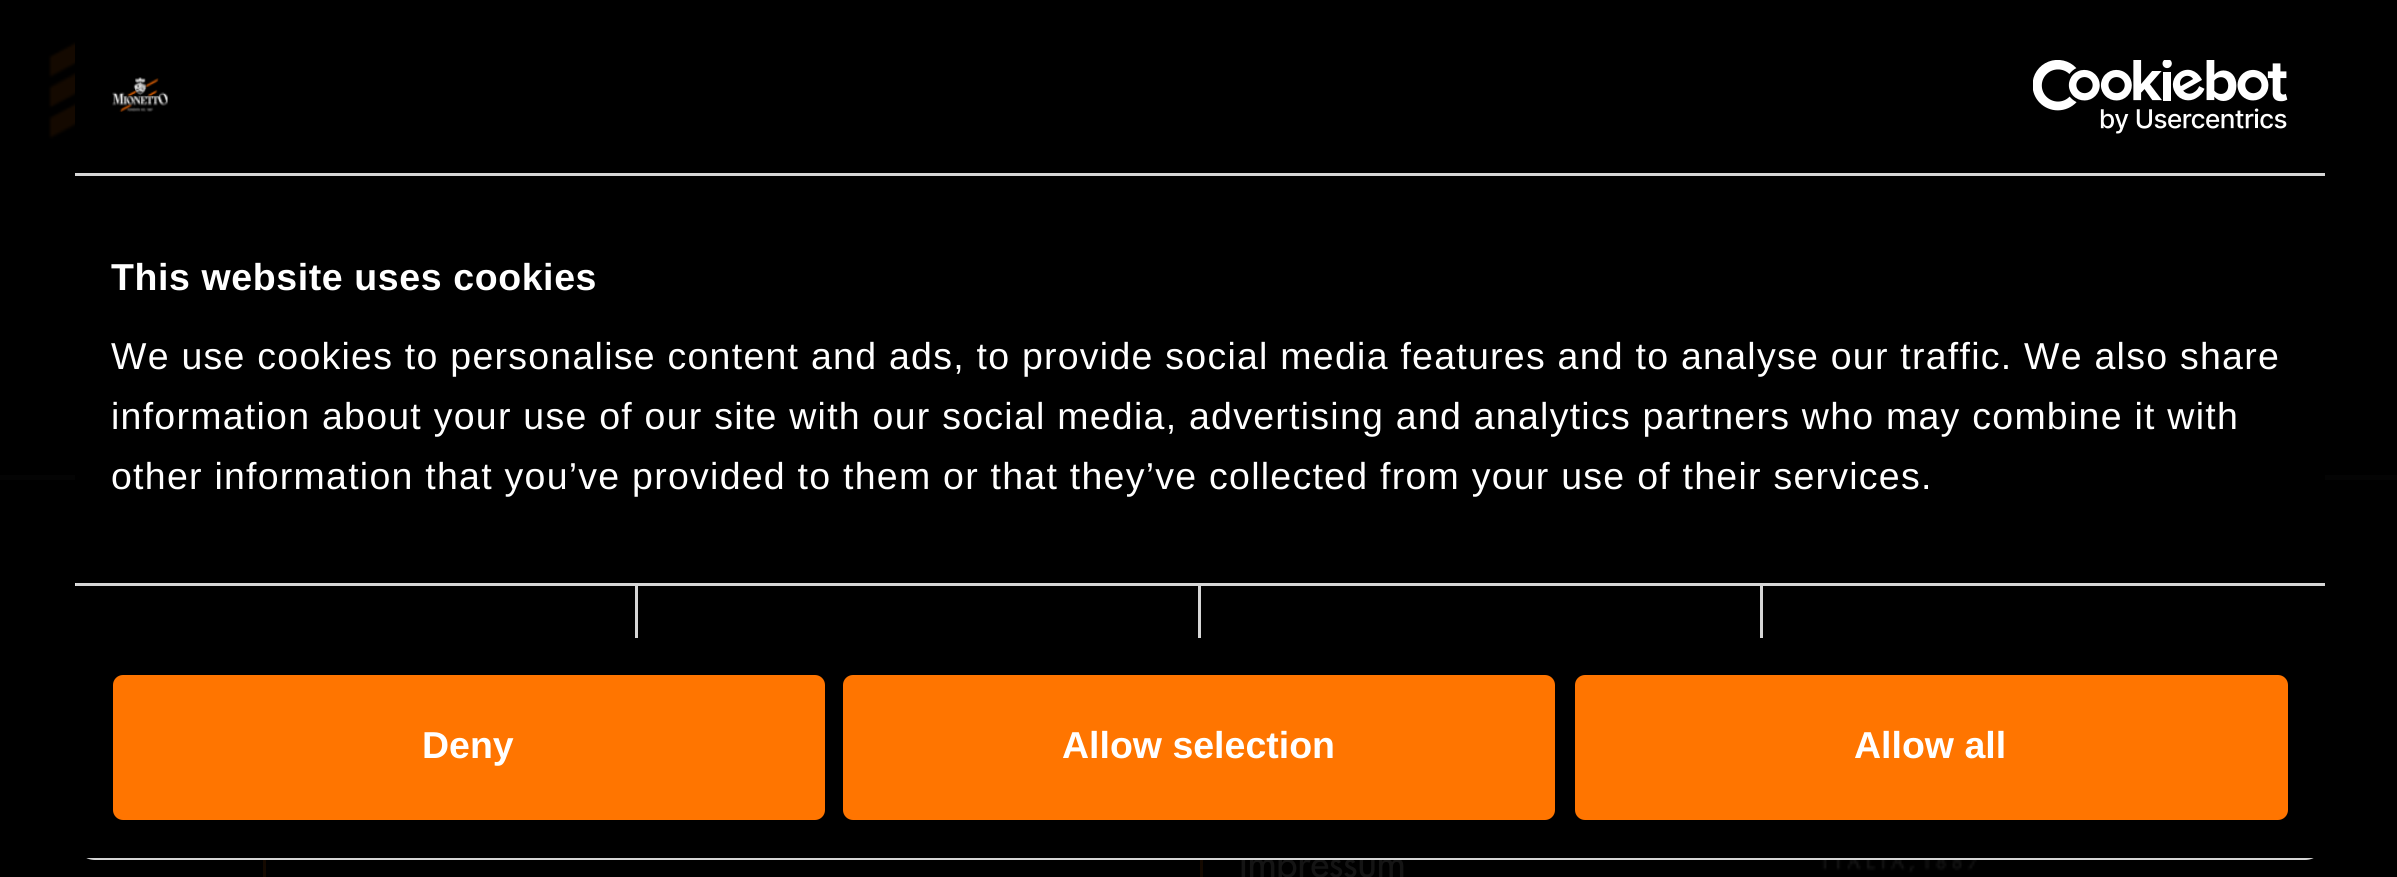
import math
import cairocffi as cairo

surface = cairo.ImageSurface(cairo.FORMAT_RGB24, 2397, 877)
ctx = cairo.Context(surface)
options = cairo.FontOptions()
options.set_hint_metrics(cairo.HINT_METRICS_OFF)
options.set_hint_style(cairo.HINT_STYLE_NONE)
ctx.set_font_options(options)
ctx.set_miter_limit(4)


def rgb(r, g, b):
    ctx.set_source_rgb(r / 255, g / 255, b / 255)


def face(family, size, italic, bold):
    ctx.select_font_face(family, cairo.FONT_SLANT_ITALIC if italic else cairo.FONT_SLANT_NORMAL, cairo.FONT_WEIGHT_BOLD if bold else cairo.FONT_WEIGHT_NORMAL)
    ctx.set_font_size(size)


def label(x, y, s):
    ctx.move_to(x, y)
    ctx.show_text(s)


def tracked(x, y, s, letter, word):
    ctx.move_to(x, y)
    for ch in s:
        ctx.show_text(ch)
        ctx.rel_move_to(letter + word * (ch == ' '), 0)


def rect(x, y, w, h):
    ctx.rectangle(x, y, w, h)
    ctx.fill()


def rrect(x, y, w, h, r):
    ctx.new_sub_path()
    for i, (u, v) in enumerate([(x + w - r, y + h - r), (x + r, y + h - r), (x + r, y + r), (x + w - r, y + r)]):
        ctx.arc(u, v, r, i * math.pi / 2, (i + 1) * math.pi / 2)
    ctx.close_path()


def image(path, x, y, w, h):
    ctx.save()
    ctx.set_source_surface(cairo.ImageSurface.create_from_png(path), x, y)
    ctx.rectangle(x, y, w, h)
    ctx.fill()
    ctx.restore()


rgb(0, 0, 0)
ctx.paint()
image('image0.png', 48, 40, 28, 99)
rgb(4, 4, 4)
rect(0, 475, 2397, 5)
face('Futura Medium', 37.5, 0, 0)
rgb(20, 20, 20)
label(1239, 877, 'Impressum')
rgb(0, 0, 0)
rrect(75, 23, 2250, 837, 20)
ctx.fill()
rgb(214, 214, 214)
rect(75, 173, 2250, 3)
image('image1.png', 112, 77, 56, 35)
image('image2.png', 2033, 60, 255, 74)
rect(635, 585, 3, 53)
rect(1198, 585, 3, 53)
rect(1760, 585, 3, 53)
rect(75, 583, 2250, 3)
face('Liberation Sans', 37.5, 0, 1)
rgb(255, 255, 255)
tracked(111, 290, 'This website uses cookies', 0.6, 0)
face('Liberation Sans', 37.5, 0, 0)
tracked(111, 369, 'We use cookies to personalise content and ads, to provide social media features and to analyse our traffic. We also share', 1.25, 0)
tracked(111, 429, 'information about your use of our site with our social media, advertising and analytics partners who may combine it with', 1.25, 0)
tracked(111, 489, 'other information that you’ve provided to them or that they’ve collected from your use of their services.', 1.25, 0)
rgb(229, 229, 229)
rect(75, 583, 1, 3)
ctx.save()
rrect(75, 23, 2250, 837, 20)
ctx.clip()
rgb(214, 214, 214)
rect(86, 858, 2228, 2)
ctx.restore()
rgb(255, 117, 0)
rrect(115.5, 677.5, 707, 140, 7.5)
ctx.fill_preserve()
ctx.set_line_width(5)
ctx.stroke()
face('Liberation Sans', 37.5, 0, 1)
rgb(255, 255, 255)
label(422, 758, 'Deny')
rgb(255, 117, 0)
rrect(845.5, 677.5, 707, 140, 7.5)
ctx.fill_preserve()
ctx.stroke()
rgb(255, 255, 255)
label(1062, 758, 'Allow selection')
rgb(255, 117, 0)
rrect(1577.5, 677.5, 708, 140, 7.5)
ctx.fill_preserve()
ctx.stroke()
rgb(255, 255, 255)
label(1854, 758, 'Allow all')
rgb(20, 9, 0)
rect(263, 860, 3, 17)
rect(1200, 860, 3, 17)
image('image3.png', 1821, 860, 156, 13)
surface.write_to_png('render.png')
